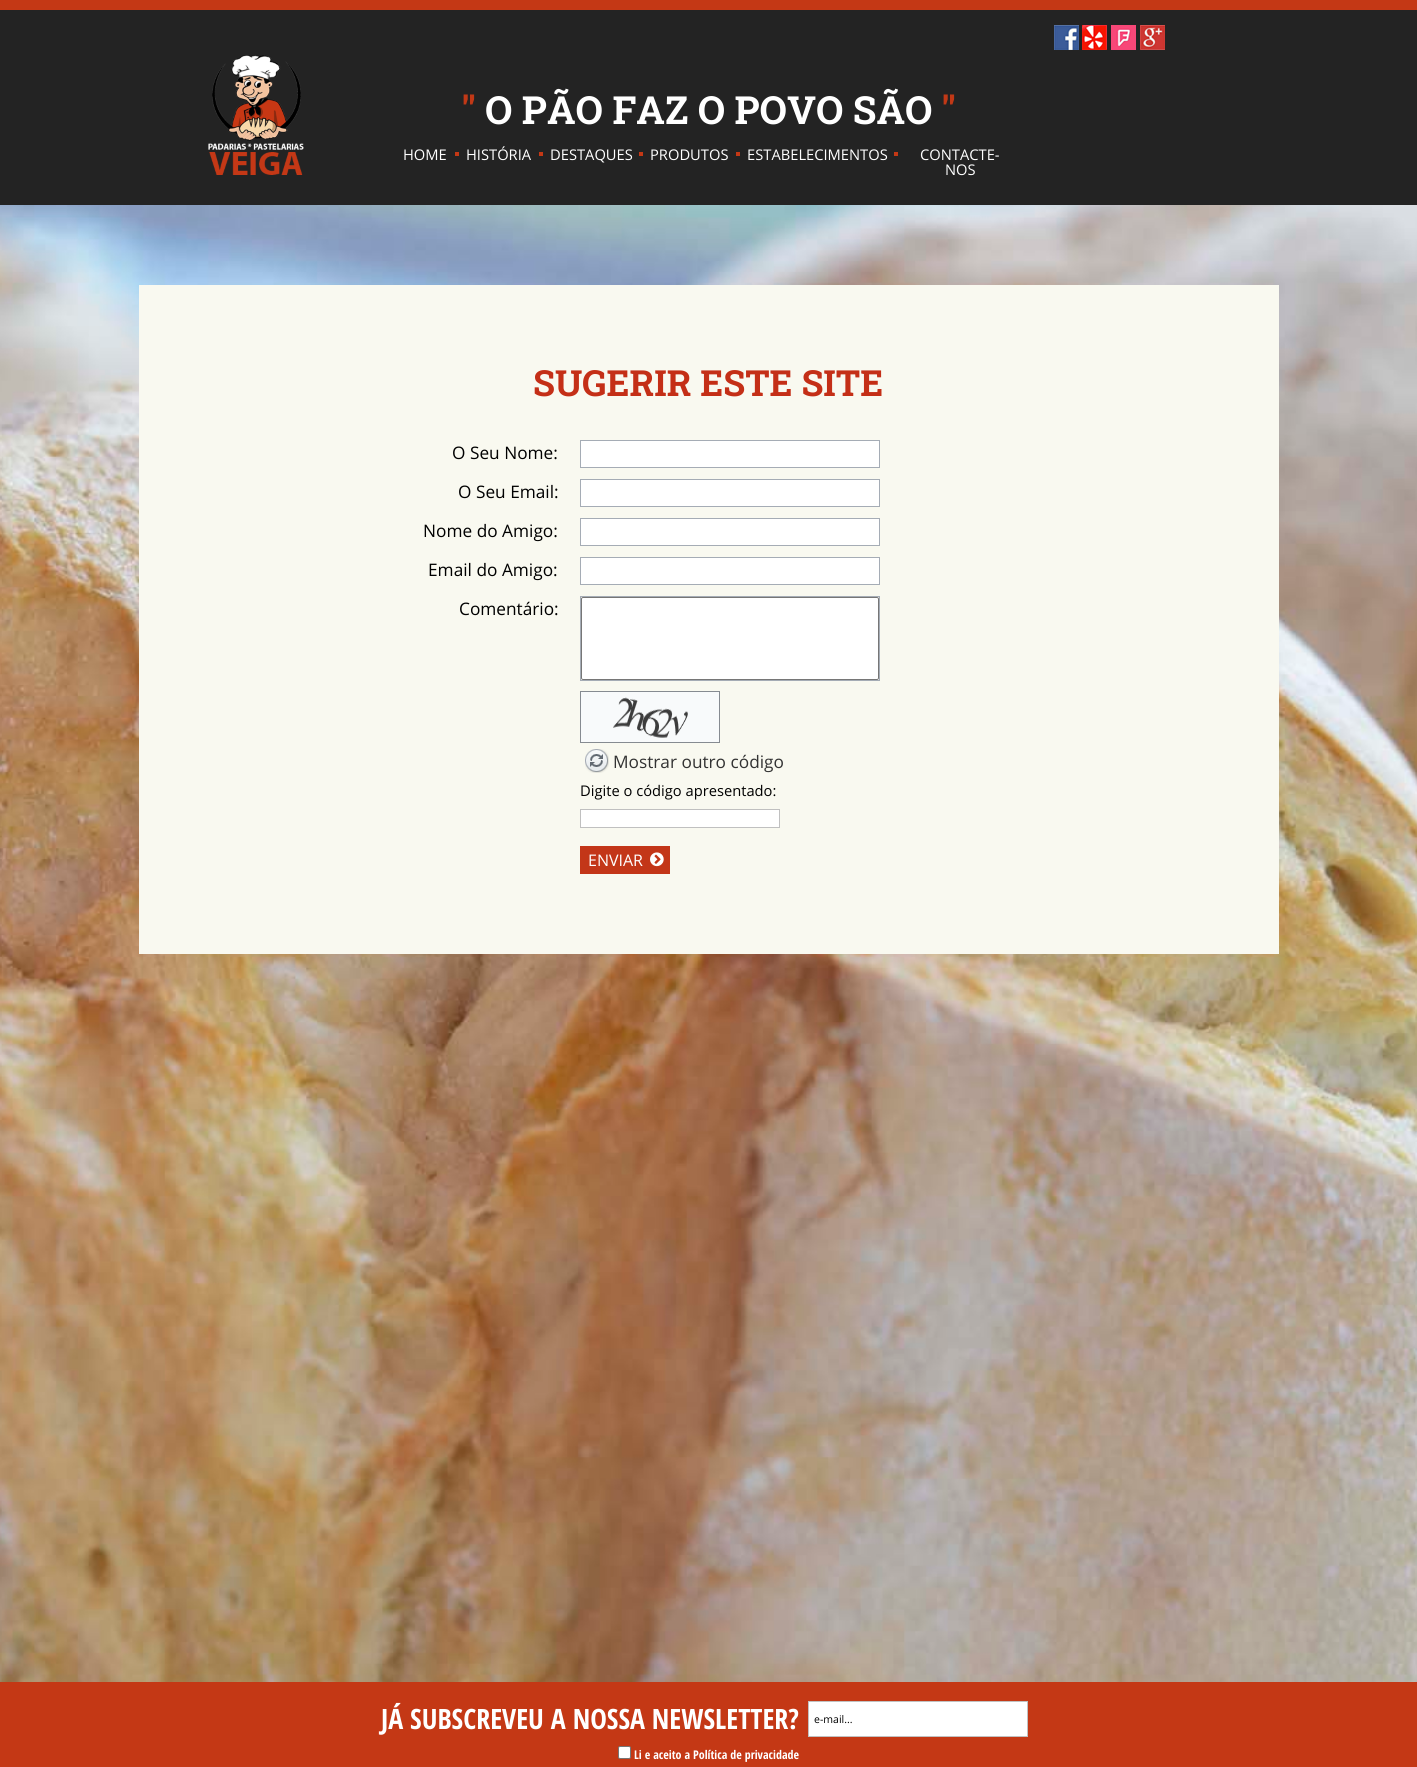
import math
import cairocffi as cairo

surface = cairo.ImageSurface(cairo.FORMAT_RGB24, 1417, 1767)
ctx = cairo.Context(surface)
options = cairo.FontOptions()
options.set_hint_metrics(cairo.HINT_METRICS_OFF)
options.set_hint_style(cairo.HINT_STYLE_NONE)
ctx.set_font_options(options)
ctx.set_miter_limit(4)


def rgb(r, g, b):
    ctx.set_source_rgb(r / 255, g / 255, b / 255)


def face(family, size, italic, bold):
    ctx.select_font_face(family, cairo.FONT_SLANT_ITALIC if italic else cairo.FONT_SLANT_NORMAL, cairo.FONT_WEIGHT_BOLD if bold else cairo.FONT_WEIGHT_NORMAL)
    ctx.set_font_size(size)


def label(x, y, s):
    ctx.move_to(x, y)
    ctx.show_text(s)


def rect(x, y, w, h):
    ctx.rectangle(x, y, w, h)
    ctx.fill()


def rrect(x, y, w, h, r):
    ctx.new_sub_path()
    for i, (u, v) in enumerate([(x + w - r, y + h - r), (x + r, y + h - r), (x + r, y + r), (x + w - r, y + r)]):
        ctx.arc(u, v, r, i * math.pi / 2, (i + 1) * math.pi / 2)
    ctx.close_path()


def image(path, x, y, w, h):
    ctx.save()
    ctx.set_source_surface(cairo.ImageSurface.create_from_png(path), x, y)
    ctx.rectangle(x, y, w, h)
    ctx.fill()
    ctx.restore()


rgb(196, 56, 21)
ctx.paint()
rgb(35, 35, 35)
rect(0, 10, 1417, 195)
image('image0.png', 1054, 25, 25, 25)
image('image1.png', 1082, 25, 25, 25)
image('image2.png', 1111, 25, 25, 25)
image('image3.png', 1140, 25, 25, 25)
image('image4.png', 208, 55, 96, 120)
face('Roboto Slab', 38.75, 0, 1)
rgb(193, 56, 22)
label(461, 124, '"')
rgb(255, 255, 255)
label(485, 124, 'O PÃO FAZ O POVO SÃO')
rgb(193, 56, 22)
label(941, 124, '"')
face('Open Sans', 14.7, 0, 0)
rgb(255, 255, 255)
label(403, 160, 'HOME')
rgb(196, 56, 21)
rect(455, 152, 4, 4)
rgb(255, 255, 255)
label(466, 160, 'HISTÓRIA')
rgb(196, 56, 21)
rect(539, 152, 4, 4)
rgb(255, 255, 255)
label(550, 160, 'DESTAQUES')
rgb(196, 56, 21)
rect(639, 152, 4, 4)
rgb(255, 255, 255)
label(650, 160, 'PRODUTOS')
rgb(196, 56, 21)
rect(736, 152, 4, 4)
rgb(255, 255, 255)
label(747, 160, 'ESTABELECIMENTOS')
rgb(196, 56, 21)
rect(894, 152, 4, 4)
rgb(255, 255, 255)
label(920, 160, 'CONTACTE-')
label(945, 175, 'NOS')
image('image5.png', 0, 205, 1417, 1477)
rgb(249, 249, 240)
rect(139, 285, 1140, 669)
face('Roboto Slab', 36, 0, 1)
rgb(196, 47, 23)
label(533, 396, 'SUGERIR ESTE SITE')
face('Open Sans', 17.25, 0, 0)
rgb(0, 0, 0)
label(452, 459, 'O Seu Nome:')
rgb(255, 255, 255)
ctx.rectangle(580.5, 440.5, 299, 27)
ctx.fill_preserve()
rgb(165, 172, 181)
ctx.set_line_width(1)
ctx.stroke()
rgb(0, 0, 0)
label(458, 498, 'O Seu Email:')
rgb(255, 255, 255)
ctx.rectangle(580.5, 479.5, 299, 27)
ctx.fill_preserve()
rgb(165, 172, 181)
ctx.stroke()
rgb(0, 0, 0)
label(423, 537, 'Nome do Amigo:')
rgb(255, 255, 255)
ctx.rectangle(580.5, 518.5, 299, 27)
ctx.fill_preserve()
rgb(165, 172, 181)
ctx.stroke()
rgb(0, 0, 0)
label(428, 576, 'Email do Amigo:')
rgb(255, 255, 255)
ctx.rectangle(580.5, 557.5, 299, 27)
ctx.fill_preserve()
rgb(165, 172, 181)
ctx.stroke()
rgb(0, 0, 0)
label(459, 615, 'Comentário:')
rgb(255, 255, 255)
ctx.rectangle(580.5, 596.5, 299, 84)
ctx.fill_preserve()
rgb(165, 172, 181)
ctx.stroke()
rrect(581.5, 597.5, 297, 82, 1.5)
rgb(118, 118, 118)
ctx.stroke()
rgb(248, 250, 251)
ctx.rectangle(580.5, 691.5, 139, 51)
ctx.fill_preserve()
rgb(134, 139, 145)
ctx.stroke()
image('image6.png', 613, 697, 75, 41)
image('image7.png', 585, 749, 24, 24)
rgb(51, 51, 51)
label(613, 768, 'Mostrar outro código')
face('Open Sans', 14.7, 0, 0)
rgb(0, 0, 0)
label(580, 796, 'Digite o código apresentado:')
rgb(255, 255, 255)
ctx.rectangle(580.5, 809.5, 199, 18)
ctx.fill_preserve()
rgb(192, 192, 192)
ctx.stroke()
rgb(195, 54, 24)
rect(580, 846, 90, 28)
face('Open Sans', 16, 0, 0)
rgb(255, 255, 255)
label(588, 866, 'ENVIAR')
image('image8.png', 650, 852, 14, 15)
face('Open Sans Condensed', 28, 0, 1)
label(381, 1729, 'JÁ SUBSCREVEU A NOSSA NEWSLETTER?')
ctx.rectangle(808.5, 1701.5, 219, 35)
ctx.fill_preserve()
rgb(193, 193, 193)
ctx.stroke()
face('Open Sans', 10.5, 0, 0)
rgb(0, 0, 0)
label(814, 1723, 'e-mail...')
rgb(255, 255, 255)
rrect(618.5, 1746.5, 12, 12, 1.5)
ctx.fill_preserve()
rgb(118, 118, 118)
ctx.stroke()
face('Open Sans Condensed', 12, 0, 1)
rgb(255, 255, 255)
label(634, 1759, 'Li e aceito a Política de privacidade')
surface.write_to_png('render.png')
